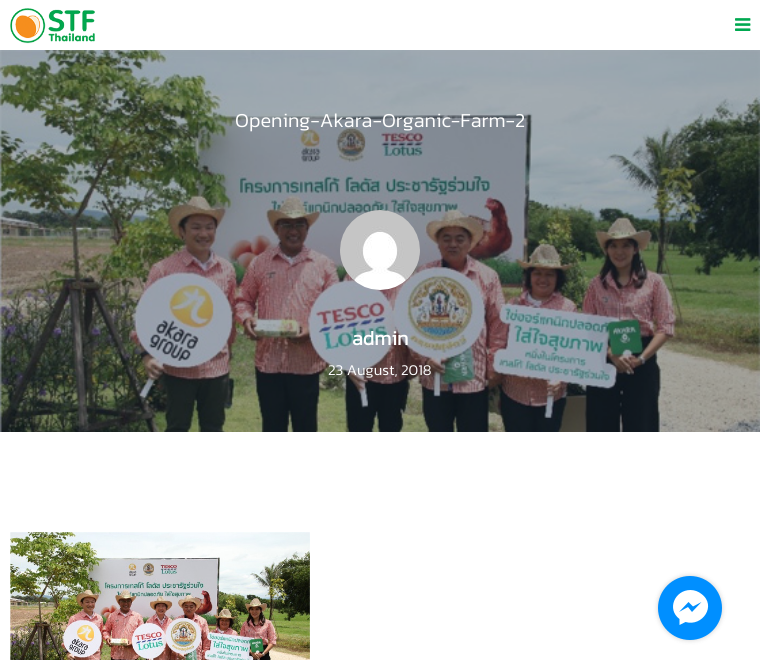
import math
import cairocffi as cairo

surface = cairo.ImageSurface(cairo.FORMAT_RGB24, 760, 660)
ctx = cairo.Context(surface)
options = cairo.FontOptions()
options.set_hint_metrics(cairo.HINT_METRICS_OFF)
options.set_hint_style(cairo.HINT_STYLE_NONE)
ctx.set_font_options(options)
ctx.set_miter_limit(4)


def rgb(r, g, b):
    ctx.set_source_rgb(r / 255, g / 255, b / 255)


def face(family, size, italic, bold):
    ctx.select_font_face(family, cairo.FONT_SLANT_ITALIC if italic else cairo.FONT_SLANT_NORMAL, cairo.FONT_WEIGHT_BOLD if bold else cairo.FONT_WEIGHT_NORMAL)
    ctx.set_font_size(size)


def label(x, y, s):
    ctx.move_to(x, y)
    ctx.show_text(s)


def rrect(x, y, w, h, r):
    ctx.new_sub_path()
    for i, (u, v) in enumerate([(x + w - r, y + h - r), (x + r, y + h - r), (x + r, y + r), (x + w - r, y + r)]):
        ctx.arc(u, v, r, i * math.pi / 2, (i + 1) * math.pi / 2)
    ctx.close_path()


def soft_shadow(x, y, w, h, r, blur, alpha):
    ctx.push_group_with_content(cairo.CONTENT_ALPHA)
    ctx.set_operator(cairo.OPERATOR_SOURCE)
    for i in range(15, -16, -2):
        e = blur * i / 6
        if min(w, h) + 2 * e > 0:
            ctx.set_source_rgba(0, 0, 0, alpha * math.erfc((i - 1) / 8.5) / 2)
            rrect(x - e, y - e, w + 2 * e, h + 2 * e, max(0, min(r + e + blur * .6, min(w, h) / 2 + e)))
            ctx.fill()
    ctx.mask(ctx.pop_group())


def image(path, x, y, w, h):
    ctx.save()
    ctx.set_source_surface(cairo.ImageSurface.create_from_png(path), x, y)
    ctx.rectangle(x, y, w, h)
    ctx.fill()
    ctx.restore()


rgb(255, 255, 255)
ctx.paint()
image('image0.png', 10, 8, 85, 36)
image('image1.png', 735, 18, 16, 13)
image('image2.png', 0, 50, 760, 382)
face('Kanit Light', 20, 0, 0)
rgb(255, 255, 255)
label(235, 127, 'Opening-Akara-Organic-Farm-2')
image('image3.png', 340, 210, 80, 80)
face('Kanit', 20, 0, 1)
label(352, 345, 'admin')
face('Kanit Light', 15, 0, 0)
label(328, 375, '23 August, 2018')
image('image4.png', 10, 532, 300, 128)
rgb(0, 0, 0)
soft_shadow(658, 576, 64, 64, 32, 2.5, 0.2)
rgb(0, 143, 255)
ctx.arc(690, 608, 32, 0, 2 * math.pi)
ctx.fill()
rgb(255, 255, 255)
ctx.new_path()
ctx.move_to(690.5, 590)
ctx.curve_to(674.5, 590, 666.5, 609.5, 679.5, 619)
ctx.line_to(679.5, 625)
ctx.line_to(685.5, 622)
ctx.curve_to(702.5, 627, 717, 605.5, 701.5, 594)
ctx.curve_to(698.5, 591.5, 694.5, 590, 690.5, 590)
ctx.close_path()
ctx.move_to(692, 612)
ctx.line_to(688, 607)
ctx.line_to(679, 612)
ctx.line_to(688.5, 602)
ctx.line_to(693, 606.5)
ctx.line_to(701.5, 602)
ctx.close_path()
ctx.fill()
surface.write_to_png('render.png')
